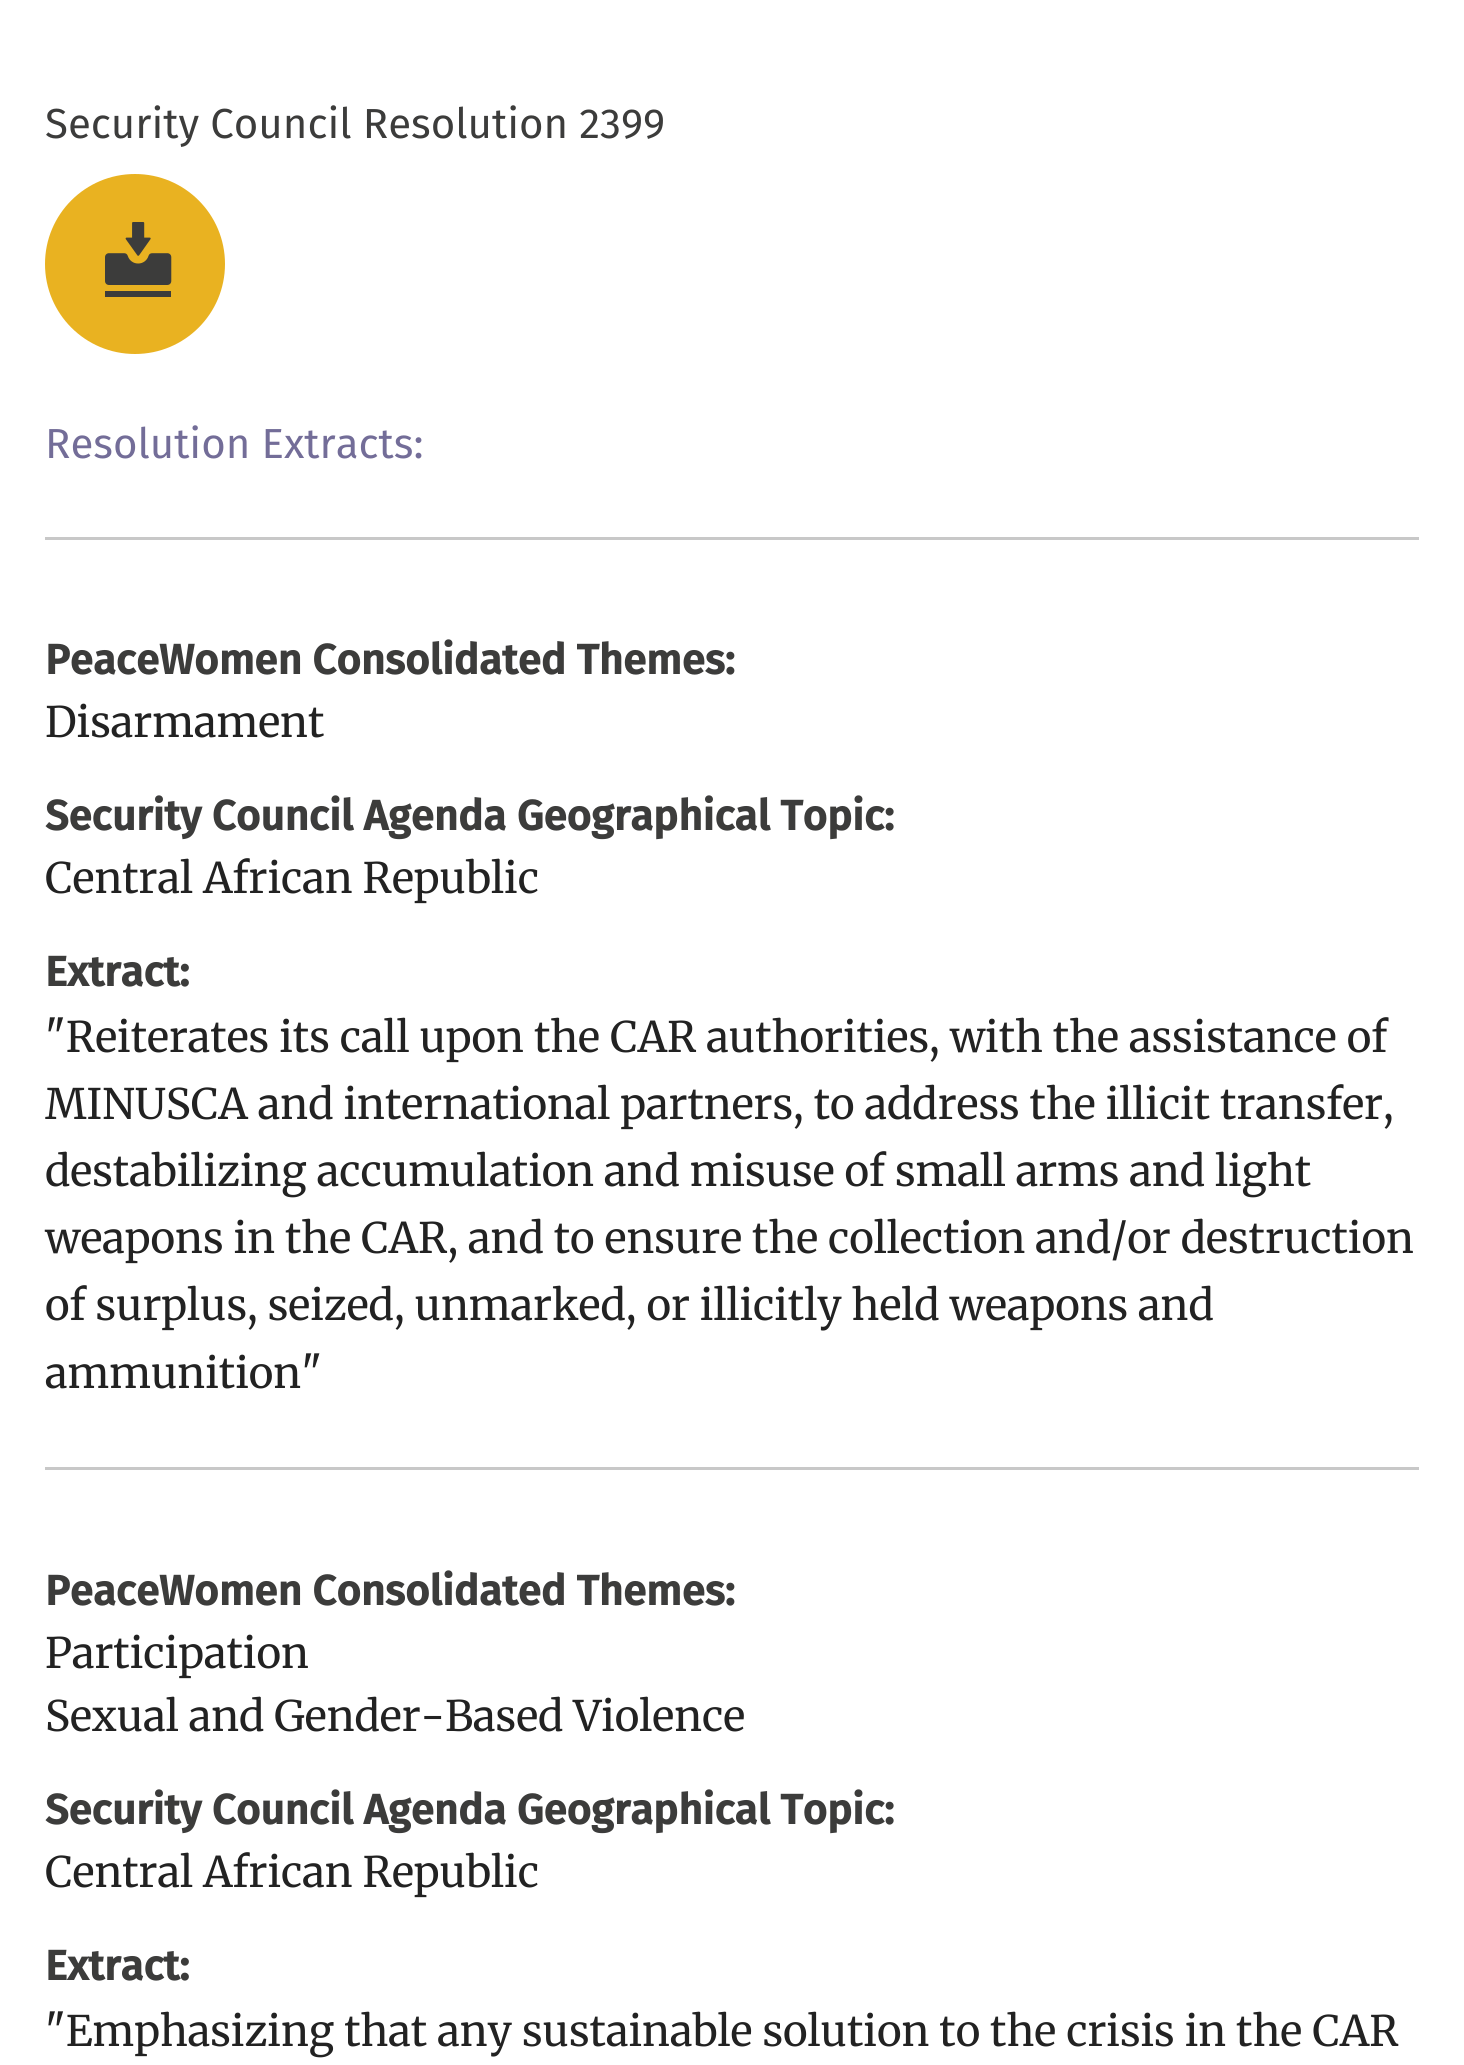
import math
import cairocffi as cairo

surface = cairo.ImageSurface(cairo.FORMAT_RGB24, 1464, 2065)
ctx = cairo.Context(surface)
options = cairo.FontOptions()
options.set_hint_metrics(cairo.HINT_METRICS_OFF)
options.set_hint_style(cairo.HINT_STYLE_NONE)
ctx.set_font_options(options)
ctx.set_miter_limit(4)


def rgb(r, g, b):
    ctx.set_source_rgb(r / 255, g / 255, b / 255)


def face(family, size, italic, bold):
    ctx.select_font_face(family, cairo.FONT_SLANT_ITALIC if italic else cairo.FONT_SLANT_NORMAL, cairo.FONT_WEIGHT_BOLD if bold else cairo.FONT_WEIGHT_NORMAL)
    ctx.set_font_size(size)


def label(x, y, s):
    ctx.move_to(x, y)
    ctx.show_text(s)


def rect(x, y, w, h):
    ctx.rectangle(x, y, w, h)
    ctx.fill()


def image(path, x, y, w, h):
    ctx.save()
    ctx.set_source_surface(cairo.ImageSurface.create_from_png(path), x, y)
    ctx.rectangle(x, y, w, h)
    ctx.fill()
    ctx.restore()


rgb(255, 255, 255)
ctx.paint()
face('Fira Sans', 42, 0, 0)
rgb(60, 60, 59)
label(45, 138, 'Security Council Resolution 2399')
rgb(233, 178, 33)
ctx.new_path()
ctx.arc(135, 264, 90, 0, 2 * math.pi)
ctx.fill()
rgb(60, 60, 59)
rect(105, 291, 66, 6)
image('image0.png', 105, 222, 67, 63)
rgb(115, 109, 152)
label(45, 458, 'Resolution Extracts:')
rgb(200, 200, 200)
rect(45, 537, 1374, 3)
face('Fira Sans', 42, 0, 1)
rgb(60, 60, 59)
label(45, 674, 'PeaceWomen Consolidated Themes:')
face('Merriweather', 42, 0, 0)
rgb(34, 34, 34)
label(45, 737, 'Disarmament')
face('Fira Sans', 42, 0, 1)
rgb(60, 60, 59)
label(45, 830, 'Security Council Agenda Geographical Topic:')
face('Merriweather', 42, 0, 0)
rgb(34, 34, 34)
label(45, 893, 'Central African Republic')
face('Fira Sans', 42, 0, 1)
rgb(60, 60, 59)
label(45, 986, 'Extract:')
face('Merriweather', 42, 0, 0)
rgb(34, 34, 34)
label(45, 1052, '"Reiterates its call upon the CAR authorities, with the assistance of')
label(45, 1119, 'MINUSCA and international partners, to address the illicit transfer,')
label(45, 1186, 'destabilizing accumulation and misuse of small arms and light')
label(45, 1253, 'weapons in the CAR, and to ensure the collection and/or destruction')
label(45, 1320, 'of surplus, seized, unmarked, or illicitly held weapons and')
label(45, 1388, 'ammunition"')
rgb(200, 200, 200)
rect(45, 1467, 1374, 3)
face('Fira Sans', 42, 0, 1)
rgb(60, 60, 59)
label(45, 1605, 'PeaceWomen Consolidated Themes:')
face('Merriweather', 42, 0, 0)
rgb(34, 34, 34)
label(45, 1668, 'Participation')
label(45, 1731, 'Sexual and Gender-Based Violence')
face('Fira Sans', 42, 0, 1)
rgb(60, 60, 59)
label(45, 1824, 'Security Council Agenda Geographical Topic:')
face('Merriweather', 42, 0, 0)
rgb(34, 34, 34)
label(45, 1887, 'Central African Republic')
face('Fira Sans', 42, 0, 1)
rgb(60, 60, 59)
label(45, 1980, 'Extract:')
face('Merriweather', 42, 0, 0)
rgb(34, 34, 34)
label(45, 2046, '"Emphasizing that any sustainable solution to the crisis in the CAR')
surface.write_to_png('render.png')
